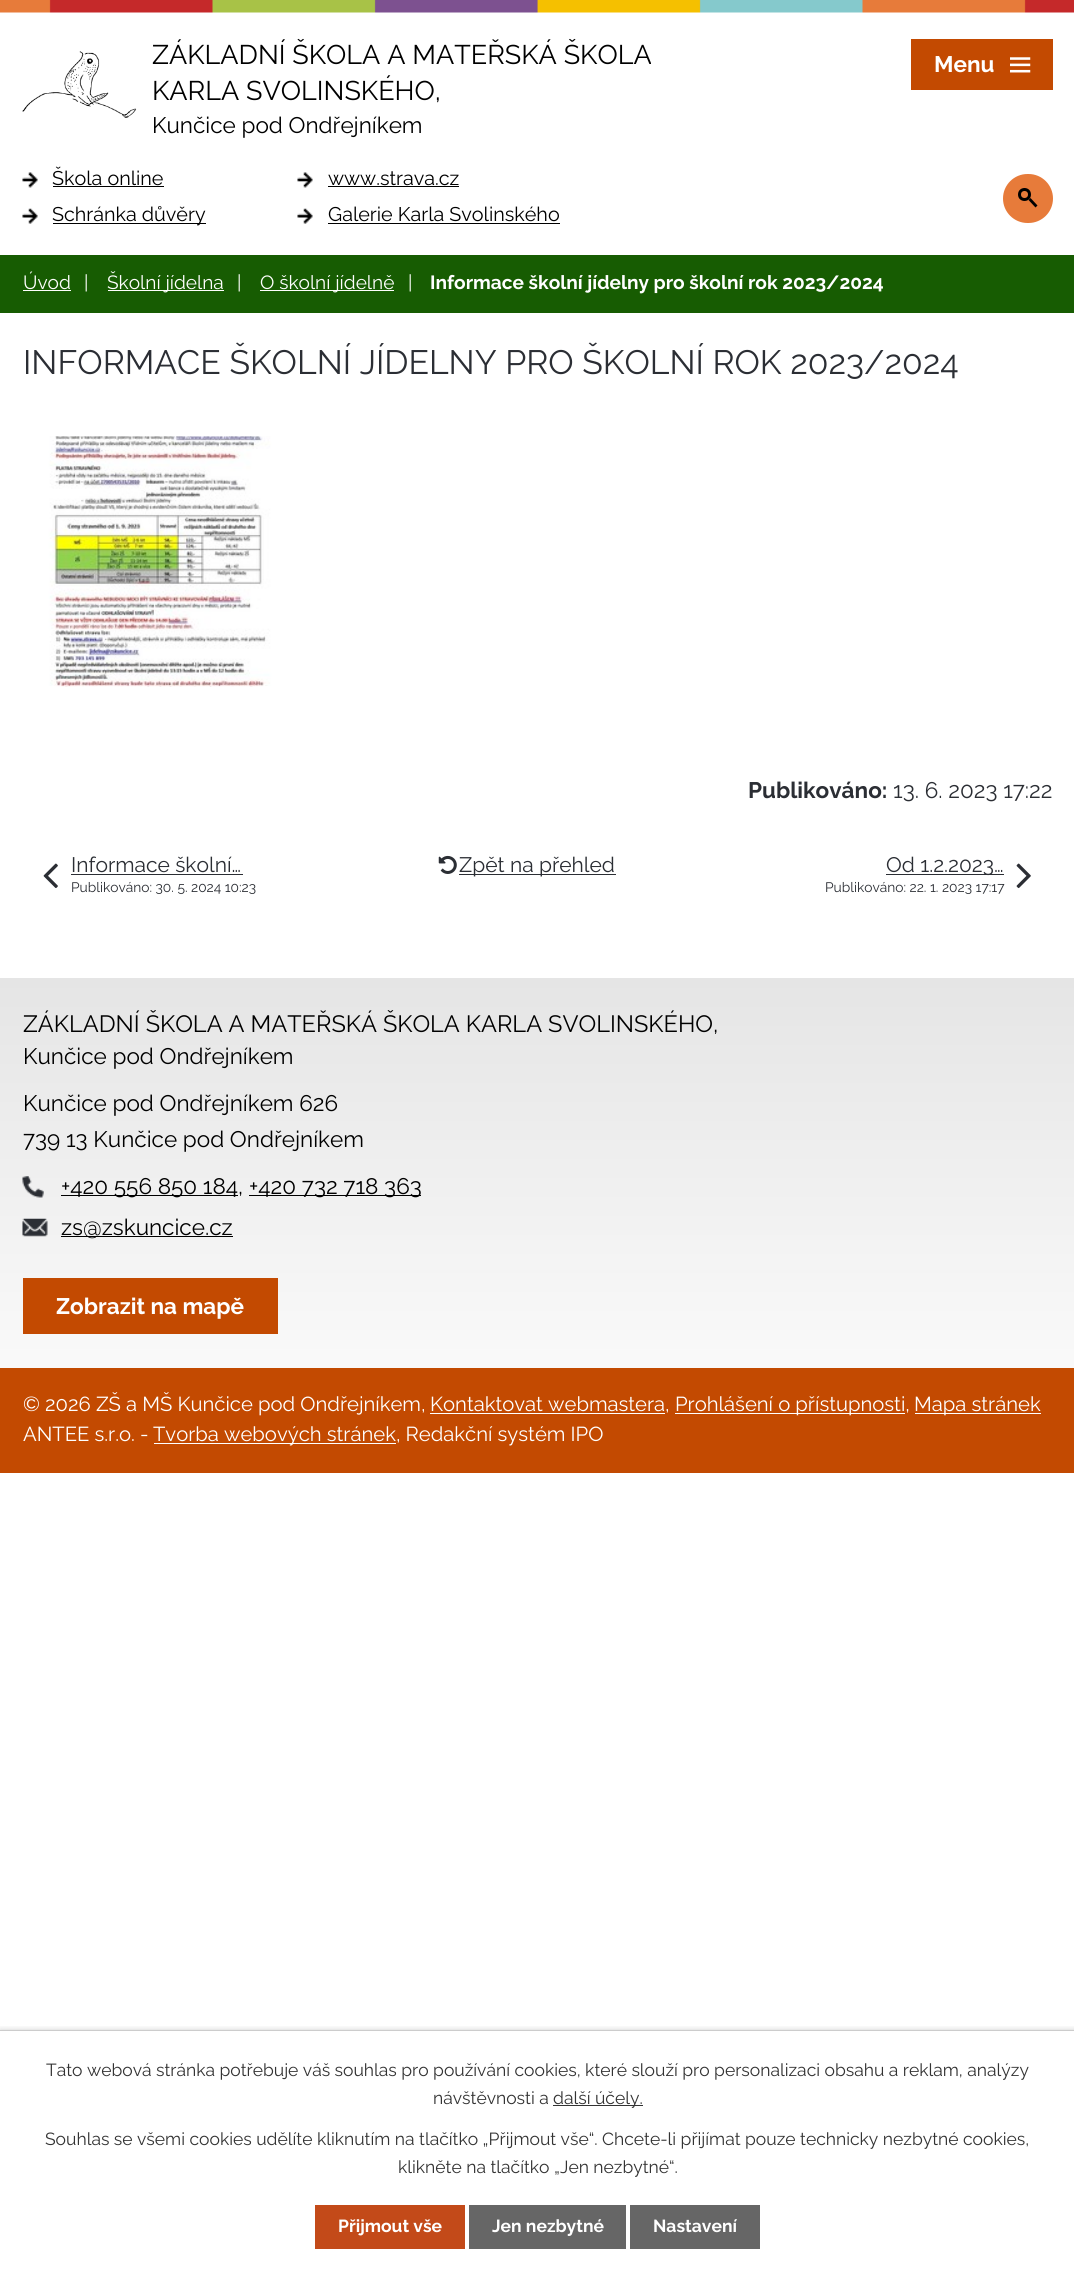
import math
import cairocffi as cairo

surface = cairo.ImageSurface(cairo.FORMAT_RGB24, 1074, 2272)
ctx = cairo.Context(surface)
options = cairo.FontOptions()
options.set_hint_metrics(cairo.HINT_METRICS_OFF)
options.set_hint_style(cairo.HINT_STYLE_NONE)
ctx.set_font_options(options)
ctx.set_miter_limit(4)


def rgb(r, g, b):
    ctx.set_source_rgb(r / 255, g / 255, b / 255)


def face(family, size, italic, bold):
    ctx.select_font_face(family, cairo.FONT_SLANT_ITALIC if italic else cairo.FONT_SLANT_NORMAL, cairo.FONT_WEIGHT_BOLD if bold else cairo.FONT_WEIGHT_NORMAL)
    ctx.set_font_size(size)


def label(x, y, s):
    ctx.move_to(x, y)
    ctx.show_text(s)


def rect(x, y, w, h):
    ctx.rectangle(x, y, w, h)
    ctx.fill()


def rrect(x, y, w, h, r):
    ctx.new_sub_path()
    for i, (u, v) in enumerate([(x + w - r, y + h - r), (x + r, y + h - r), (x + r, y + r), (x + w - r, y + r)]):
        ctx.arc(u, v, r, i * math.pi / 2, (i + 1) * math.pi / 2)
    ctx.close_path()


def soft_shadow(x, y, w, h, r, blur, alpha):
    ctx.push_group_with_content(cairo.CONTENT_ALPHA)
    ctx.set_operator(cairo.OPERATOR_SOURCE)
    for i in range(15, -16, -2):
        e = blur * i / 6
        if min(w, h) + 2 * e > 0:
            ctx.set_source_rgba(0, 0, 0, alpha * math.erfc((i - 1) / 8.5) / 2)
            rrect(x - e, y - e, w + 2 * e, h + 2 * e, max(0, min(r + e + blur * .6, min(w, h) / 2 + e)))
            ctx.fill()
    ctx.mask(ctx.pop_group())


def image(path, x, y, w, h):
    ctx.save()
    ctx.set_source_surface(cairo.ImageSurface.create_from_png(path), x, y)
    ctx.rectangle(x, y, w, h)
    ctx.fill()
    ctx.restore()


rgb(255, 255, 255)
ctx.paint()
image('image0.png', 0, 0, 1074, 13)
image('image1.png', 22, 51, 115, 67)
face('Raleway', 27, 0, 0)
rgb(0, 0, 0)
label(152, 64, 'ZÁKLADNÍ ŠKOLA A MATEŘSKÁ ŠKOLA')
label(152, 100, 'KARLA SVOLINSKÉHO,')
face('Raleway', 22.5, 0, 0)
label(152, 133, 'Kunčice pod Ondřejníkem')
image('image2.png', 22, 172, 16, 16)
face('Raleway', 19.75, 0, 0)
label(52, 185, 'Škola online')
rect(53, 186, 111, 1)
image('image2.png', 297, 172, 16, 16)
label(328, 185, 'www.strava.cz')
rect(328, 186, 131, 1)
image('image3.png', 22, 208, 16, 16)
rect(53, 223, 153, 1)
label(52, 221, 'Schránka důvěry')
image('image3.png', 297, 208, 16, 16)
label(328, 221, 'Galerie Karla Svolinského')
rect(328, 223, 232, 1)
rgb(231, 123, 58)
rrect(1003, 174, 50, 49, 24.5)
ctx.fill()
ctx.arc(1024.5, 194.5, 5, 0, 2 * math.pi)
rgb(0, 0, 0)
ctx.set_line_width(3)
ctx.stroke()
ctx.new_path()
ctx.move_to(1030.5, 198)
ctx.line_to(1037.5, 205.5)
ctx.line_to(1035.5, 207.5)
ctx.line_to(1028.5, 200)
ctx.close_path()
ctx.fill()
rgb(195, 74, 1)
rect(911, 39, 142, 51)
face('Raleway', 22.5, 0, 1)
rgb(255, 255, 255)
label(934, 72, 'Menu')
image('image4.png', 1010, 57, 21, 16)
rgb(23, 92, 2)
rect(0, 255, 1074, 58)
face('Raleway', 19.1, 0, 0)
rgb(255, 255, 255)
label(23, 289, 'Úvod')
rect(23, 290, 48, 1)
label(84, 289, '|')
rect(108, 290, 116, 1)
label(107, 289, 'Školní jídelna')
label(237, 289, '|')
rect(260, 290, 134, 1)
label(260, 289, 'O školní jídelně')
label(408, 289, '|')
face('Raleway', 19.1, 0, 1)
label(430, 289, 'Informace školní jídelny pro školní rok 2023/2024')
face('Raleway', 33.75, 0, 0)
rgb(43, 46, 52)
label(23, 374, 'INFORMACE ŠKOLNÍ JÍDELNY PRO ŠKOLNÍ ROK 2023/2024')
image('image5.png', 30, 436, 250, 251)
face('Raleway', 22.5, 0, 1)
label(748, 798, 'Publikováno:')
face('Raleway', 22.5, 0, 0)
label(893, 798, '13. 6. 2023 17:22')
image('image6.png', 43, 863, 15, 25)
face('Raleway', 21, 0, 0)
label(71, 872, 'Informace školní…')
rect(71, 874, 172, 1)
face('Raleway', 13.75, 0, 0)
label(71, 892, 'Publikováno: 30. 5. 2024 10:23')
image('image7.png', 438, 855, 19, 19)
rect(459, 874, 157, 1)
face('Raleway', 21, 0, 0)
label(459, 872, 'Zpět na přehled')
rect(886, 874, 118, 1)
label(886, 872, 'Od 1.2.2023…')
face('Raleway', 13.75, 0, 0)
label(825, 892, 'Publikováno: 22. 1. 2023 17:17')
image('image8.png', 1016, 863, 15, 26)
gradient = cairo.LinearGradient(538, 978, 538, 1473)
gradient.add_color_stop_rgba(0, 0.898, 0.898, 0.898, 1)
gradient.add_color_stop_rgba(1, 1, 1, 1, 1)
ctx.set_source(gradient)
rect(0, 978, 1074, 390)
face('Raleway', 23.6, 0, 0)
rgb(0, 0, 0)
label(23, 1032, 'ZÁKLADNÍ ŠKOLA A MATEŘSKÁ ŠKOLA KARLA SVOLINSKÉHO,')
face('Raleway', 22.5, 0, 0)
label(23, 1064, 'Kunčice pod Ondřejníkem')
label(23, 1111, 'Kunčice pod Ondřejníkem 626')
label(23, 1147, '739 13 Kunčice pod Ondřejníkem')
image('image9.png', 22, 1176, 22, 22)
rect(61, 1195, 177, 1)
label(61, 1194, '+420 556 850 184,')
rect(249, 1195, 172, 1)
label(249, 1194, '+420 732 718 363')
image('image10.png', 22, 1218, 26, 19)
rect(61, 1236, 172, 1)
label(61, 1235, 'zs@zskuncice.cz')
rgb(195, 74, 1)
rect(23, 1278, 255, 56)
face('Raleway', 22.5, 0, 1)
rgb(255, 255, 255)
label(56, 1314, 'Zobrazit na mapě')
rgb(195, 74, 1)
rect(0, 1368, 1074, 105)
face('Raleway', 20.25, 0, 0)
rgb(255, 255, 255)
label(23, 1411, '© 2026 ZŠ a MŠ Kunčice pod Ondřejníkem,')
label(430, 1411, 'Kontaktovat webmastera,')
rect(430, 1413, 235, 1)
rect(675, 1413, 230, 1)
label(675, 1411, 'Prohlášení o přístupnosti,')
rect(915, 1413, 126, 1)
label(914, 1411, 'Mapa stránek')
label(23, 1441, 'ANTEE s.r.o. -')
rect(154, 1443, 242, 1)
label(153, 1441, 'Tvorba webových stránek, Redakční systém IPO')
ctx.save()
ctx.rectangle(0, 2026, 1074, 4)
ctx.clip()
rgb(0, 0, 0)
soft_shadow(0, 2030, 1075, 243, 0, 3, 0.2)
ctx.restore()
rgb(204, 204, 204)
rect(0, 2030, 1074, 1)
face('Raleway', 17.5, 0, 0)
rgb(51, 51, 51)
label(46, 2076, 'Tato webová stránka potřebuje váš souhlas pro používání cookies, které slouží pro personalizaci obsahu a reklam, analýzy')
label(433, 2104, 'návštěvnosti a')
rect(553, 2105, 90, 1)
label(553, 2104, 'další účely.')
label(45, 2145, 'Souhlas se všemi cookies udělíte kliknutím na tlačítko „Přijmout vše“. Chcete-li přijímat pouze technicky nezbytné cookies,')
label(398, 2173, 'klikněte na tlačítko „Jen nezbytné“.')
rgb(195, 74, 25)
rect(315, 2205, 150, 44)
face('Raleway', 17.5, 0, 1)
rgb(255, 255, 255)
label(338, 2232, 'Přijmout vše')
rgb(102, 102, 102)
rect(469, 2205, 157, 44)
rgb(255, 255, 255)
label(492, 2232, 'Jen nezbytné')
rgb(102, 102, 102)
rect(630, 2205, 130, 44)
rgb(255, 255, 255)
label(653, 2232, 'Nastavení')
surface.write_to_png('render.png')
